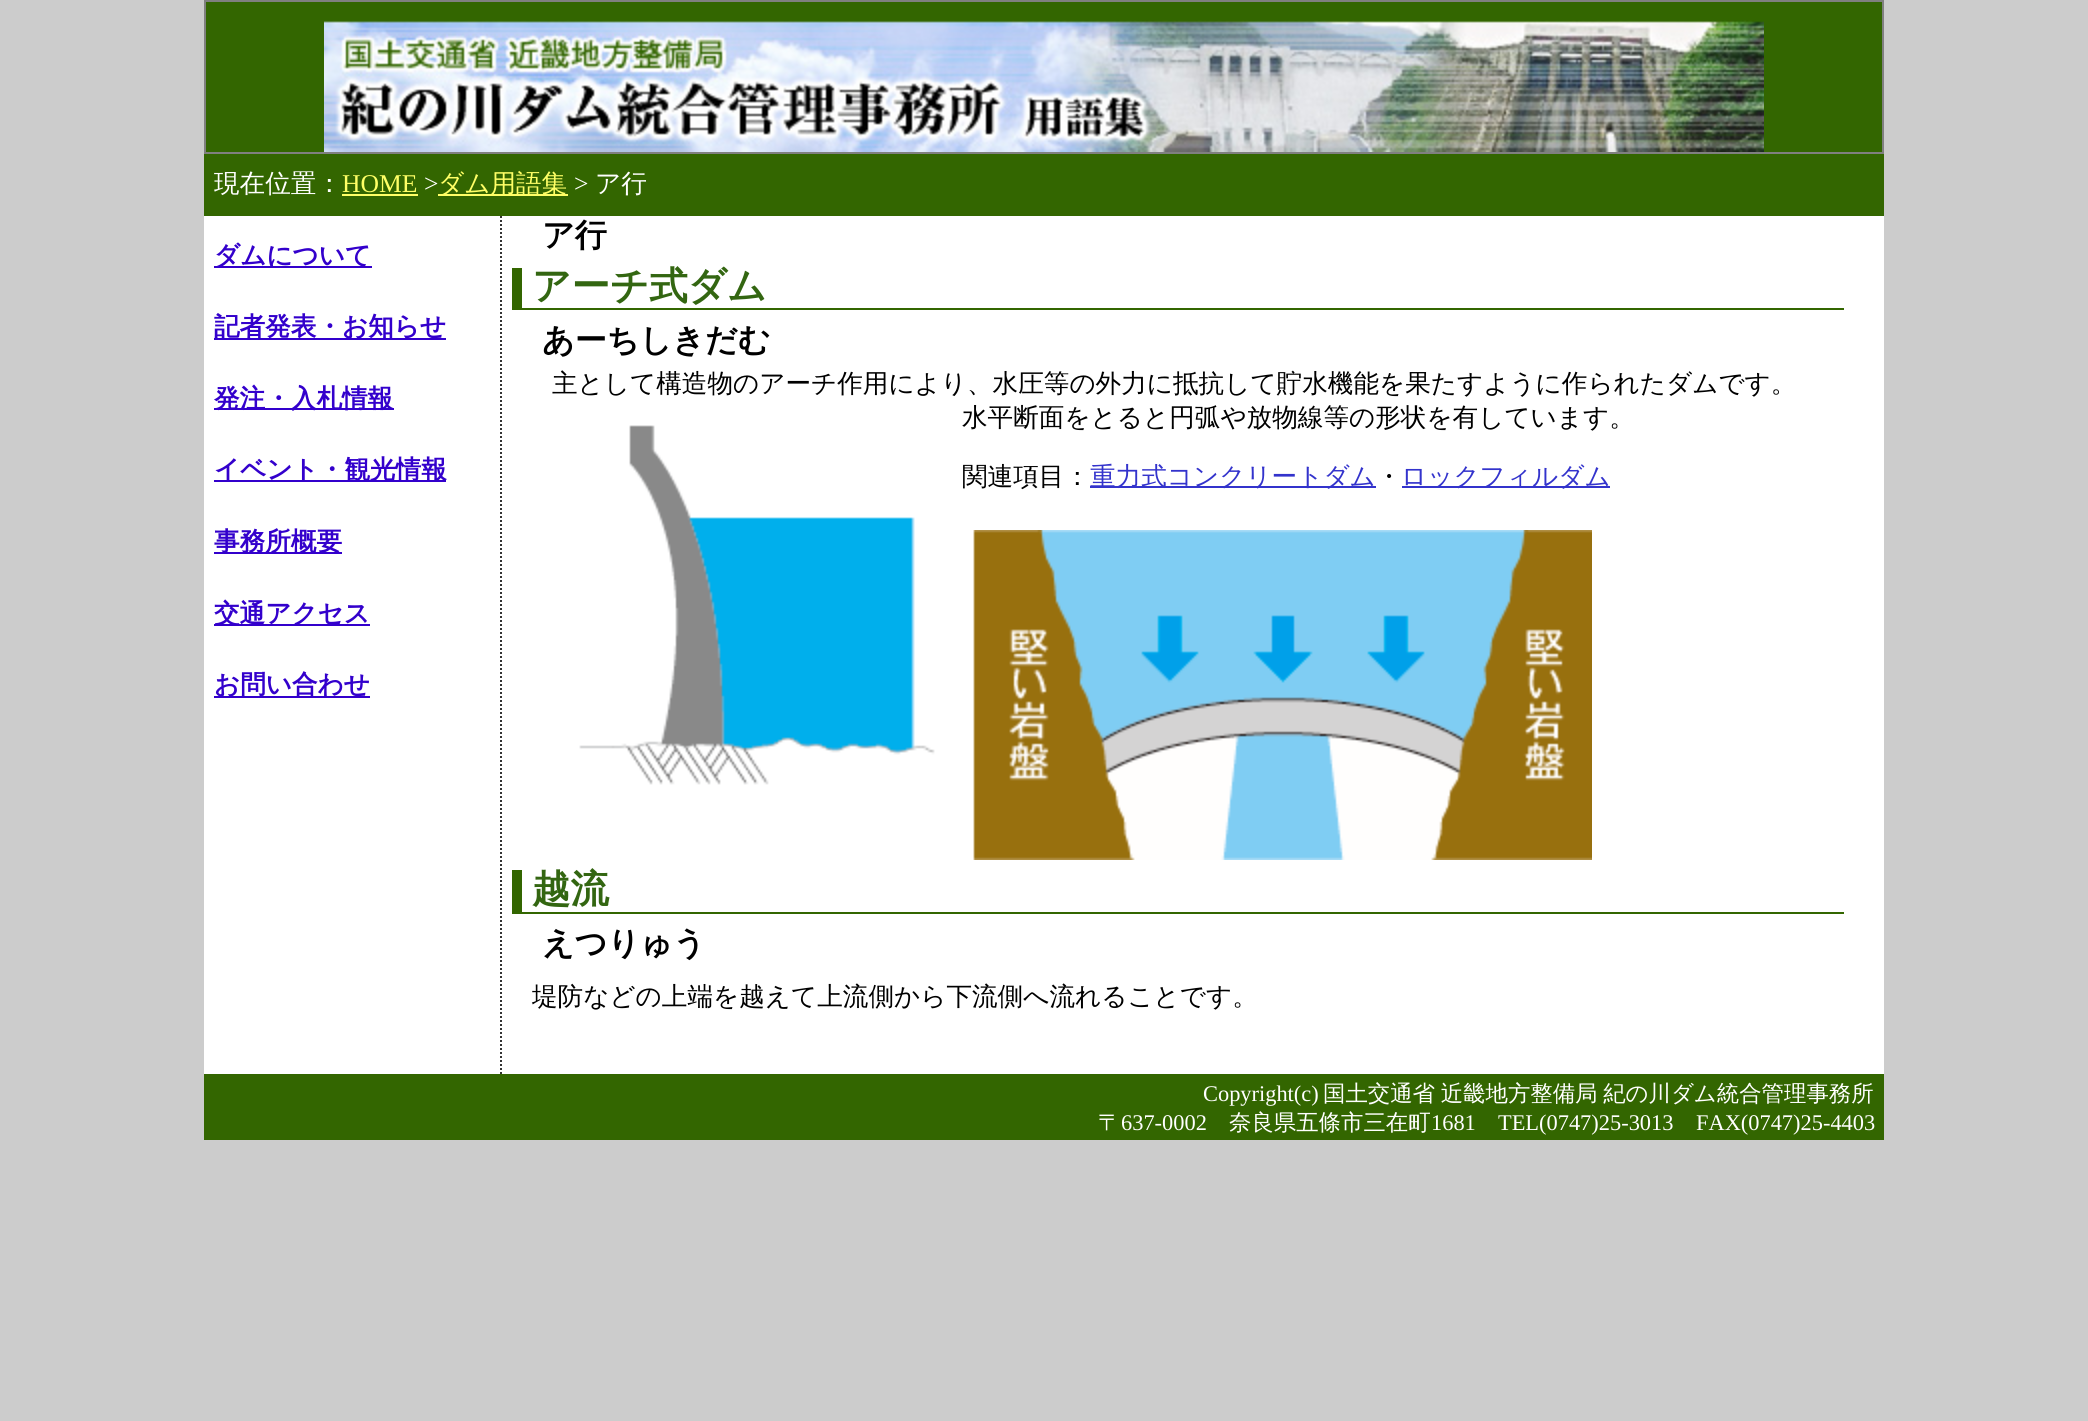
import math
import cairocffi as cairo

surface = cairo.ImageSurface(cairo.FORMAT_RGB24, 2088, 1421)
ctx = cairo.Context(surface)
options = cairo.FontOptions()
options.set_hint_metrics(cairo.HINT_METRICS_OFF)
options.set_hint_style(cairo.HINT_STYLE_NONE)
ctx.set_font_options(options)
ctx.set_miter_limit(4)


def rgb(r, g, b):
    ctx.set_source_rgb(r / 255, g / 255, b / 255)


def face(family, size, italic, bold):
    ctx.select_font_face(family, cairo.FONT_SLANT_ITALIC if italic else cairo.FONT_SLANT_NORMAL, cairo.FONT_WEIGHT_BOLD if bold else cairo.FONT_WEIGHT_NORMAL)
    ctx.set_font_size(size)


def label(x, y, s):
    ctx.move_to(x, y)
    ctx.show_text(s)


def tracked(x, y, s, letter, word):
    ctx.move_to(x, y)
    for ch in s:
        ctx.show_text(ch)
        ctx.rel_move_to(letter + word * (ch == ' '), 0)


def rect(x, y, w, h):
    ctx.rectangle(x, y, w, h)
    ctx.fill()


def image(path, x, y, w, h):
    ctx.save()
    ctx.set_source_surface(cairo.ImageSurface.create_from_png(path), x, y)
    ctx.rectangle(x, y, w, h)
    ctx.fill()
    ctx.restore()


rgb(204, 204, 204)
ctx.paint()
rgb(255, 255, 255)
rect(204, 216, 1680, 858)
rgb(51, 102, 0)
ctx.rectangle(205, 1, 1678, 152)
ctx.fill_preserve()
rgb(128, 128, 128)
ctx.stroke()
image('image0.png', 324, 20, 1440, 132)
rgb(51, 102, 0)
rect(204, 154, 1680, 62)
face('WenQuanYi Zen Hei Medium', 25.6, 0, 0)
rgb(255, 255, 255)
label(214, 192, '現在位置：')
face('Liberation Serif', 25.6, 0, 0)
rgb(255, 255, 102)
label(342, 192, 'HOME')
rect(342, 194, 76, 2)
rgb(255, 255, 255)
label(424, 192, '>')
rgb(255, 255, 102)
rect(438, 194, 130, 2)
face('WenQuanYi Zen Hei Medium', 25.6, 0, 0)
label(438, 192, 'ダム用語集')
face('Liberation Serif', 25.6, 0, 0)
rgb(255, 255, 255)
label(574, 192, '>')
face('WenQuanYi Zen Hei Medium', 25.6, 0, 0)
label(595, 192, 'ア行')
rgb(51, 0, 204)
rect(214, 266, 158, 2)
face('WenQuanYi Zen Hei', 25.6, 0, 1)
label(214, 264, 'ダムについて')
rect(214, 338, 232, 2)
label(214, 335, '記者発表・お知らせ')
rect(214, 408, 180, 2)
label(214, 407, '発注・入札情報')
rect(214, 480, 232, 2)
label(214, 478, 'イベント・観光情報')
rect(214, 552, 128, 2)
label(214, 550, '事務所概要')
rect(214, 624, 156, 2)
label(214, 622, '交通アクセス')
rect(214, 696, 156, 2)
label(214, 693, 'お問い合わせ')
ctx.new_path()
ctx.move_to(501, 216)
ctx.line_to(501, 1074)
rgb(51, 51, 51)
ctx.set_dash([2, 2])
ctx.stroke()
face('WenQuanYi Zen Hei', 32, 0, 1)
rgb(0, 0, 0)
label(542, 246, 'ア行')
rgb(51, 102, 0)
rect(522, 308, 1322, 2)
rect(512, 268, 10, 42)
face('WenQuanYi Zen Hei', 38.5, 0, 1)
rgb(51, 102, 17)
label(532, 299, 'アーチ式ダム')
face('WenQuanYi Zen Hei', 32, 0, 1)
rgb(0, 0, 0)
label(542, 351, 'あーちしきだむ')
face('WenQuanYi Zen Hei Medium', 25.6, 0, 0)
label(552, 392, '主として構造物のアーチ作用により、水圧等の外力に抵抗して貯水機能を果たすように作られたダムです。')
label(962, 426, '水平断面をとると円弧や放物線等の形状を有しています。')
image('image1.png', 579, 425, 356, 360)
label(962, 485, '関連項目：')
rgb(51, 51, 204)
rect(1090, 486, 286, 2)
label(1090, 485, '重力式コンクリートダム')
rgb(0, 0, 0)
label(1376, 485, '・')
rgb(51, 51, 204)
rect(1402, 486, 208, 2)
label(1401, 485, 'ロックフィルダム')
image('image2.png', 973, 530, 619, 330)
rgb(51, 102, 0)
rect(522, 912, 1322, 2)
rect(512, 870, 10, 44)
face('WenQuanYi Zen Hei', 38.5, 0, 1)
rgb(51, 102, 17)
label(532, 902, '越流')
face('WenQuanYi Zen Hei', 32, 0, 1)
rgb(0, 0, 0)
label(542, 954, 'えつりゅう')
face('WenQuanYi Zen Hei Medium', 25.6, 0, 0)
label(532, 1005, '堤防などの上端を越えて上流側から下流側へ流れることです。')
rgb(51, 102, 0)
rect(204, 1074, 1680, 66)
face('Liberation Serif', 22.4, 0, 0)
rgb(255, 255, 255)
label(1203, 1101, 'Copyright(c)')
face('WenQuanYi Zen Hei Medium', 22.4, 0, 0)
tracked(1323, 1101, '国土交通省 近畿地方整備局 紀の川ダム統合管理事務所', 0, -1)
label(1098, 1130, '〒')
face('Liberation Serif', 22.4, 0, 0)
label(1121, 1130, '637-0002')
face('WenQuanYi Zen Hei Medium', 22.4, 0, 0)
label(1229, 1130, '奈良県五條市三在町')
face('Liberation Serif', 22.4, 0, 0)
label(1431, 1130, '1681')
label(1498, 1130, 'TEL(0747)25-3013')
label(1696, 1130, 'FAX(0747)25-4403')
surface.write_to_png('render.png')
